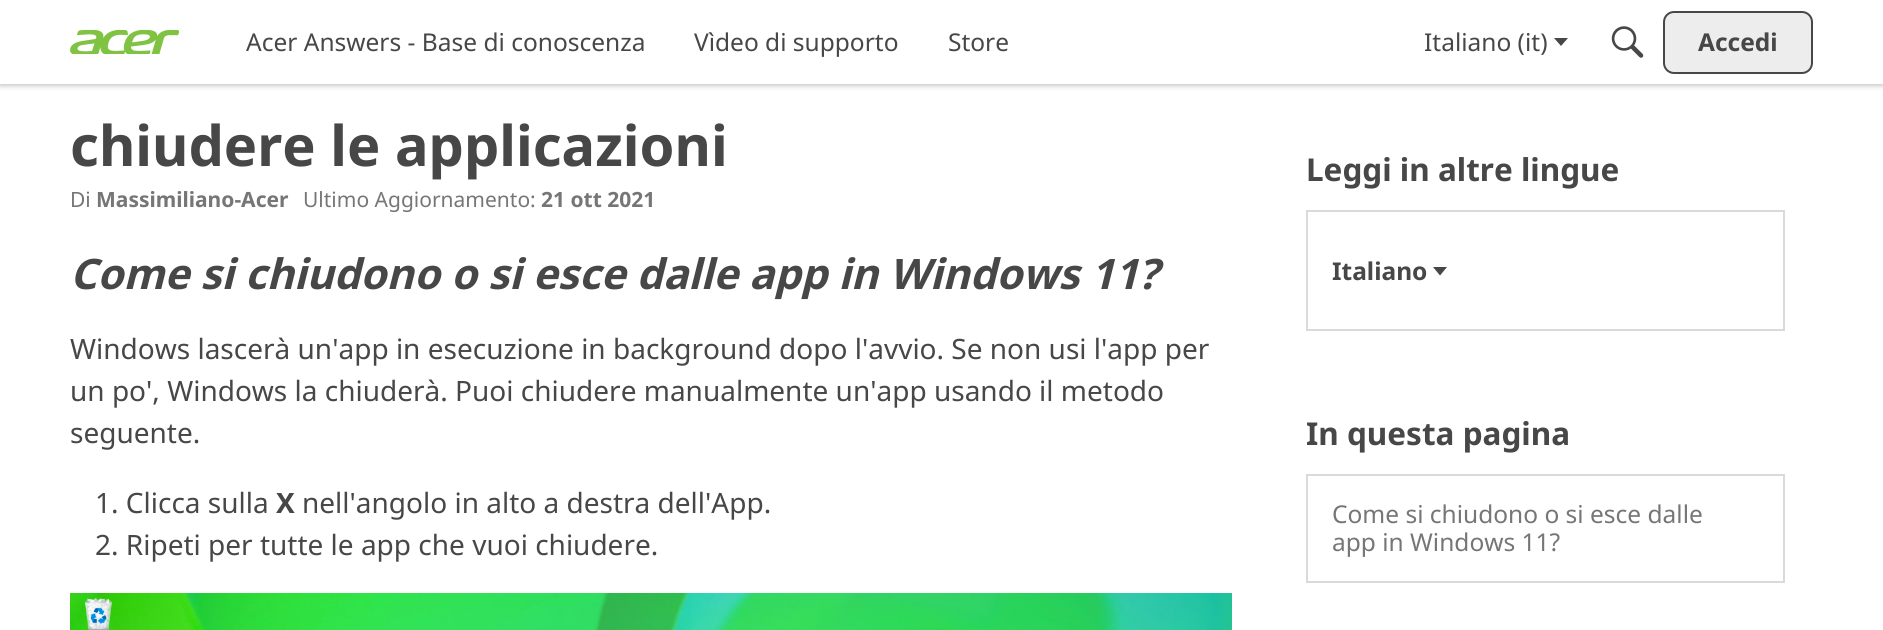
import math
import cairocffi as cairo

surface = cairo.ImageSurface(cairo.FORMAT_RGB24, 1883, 630)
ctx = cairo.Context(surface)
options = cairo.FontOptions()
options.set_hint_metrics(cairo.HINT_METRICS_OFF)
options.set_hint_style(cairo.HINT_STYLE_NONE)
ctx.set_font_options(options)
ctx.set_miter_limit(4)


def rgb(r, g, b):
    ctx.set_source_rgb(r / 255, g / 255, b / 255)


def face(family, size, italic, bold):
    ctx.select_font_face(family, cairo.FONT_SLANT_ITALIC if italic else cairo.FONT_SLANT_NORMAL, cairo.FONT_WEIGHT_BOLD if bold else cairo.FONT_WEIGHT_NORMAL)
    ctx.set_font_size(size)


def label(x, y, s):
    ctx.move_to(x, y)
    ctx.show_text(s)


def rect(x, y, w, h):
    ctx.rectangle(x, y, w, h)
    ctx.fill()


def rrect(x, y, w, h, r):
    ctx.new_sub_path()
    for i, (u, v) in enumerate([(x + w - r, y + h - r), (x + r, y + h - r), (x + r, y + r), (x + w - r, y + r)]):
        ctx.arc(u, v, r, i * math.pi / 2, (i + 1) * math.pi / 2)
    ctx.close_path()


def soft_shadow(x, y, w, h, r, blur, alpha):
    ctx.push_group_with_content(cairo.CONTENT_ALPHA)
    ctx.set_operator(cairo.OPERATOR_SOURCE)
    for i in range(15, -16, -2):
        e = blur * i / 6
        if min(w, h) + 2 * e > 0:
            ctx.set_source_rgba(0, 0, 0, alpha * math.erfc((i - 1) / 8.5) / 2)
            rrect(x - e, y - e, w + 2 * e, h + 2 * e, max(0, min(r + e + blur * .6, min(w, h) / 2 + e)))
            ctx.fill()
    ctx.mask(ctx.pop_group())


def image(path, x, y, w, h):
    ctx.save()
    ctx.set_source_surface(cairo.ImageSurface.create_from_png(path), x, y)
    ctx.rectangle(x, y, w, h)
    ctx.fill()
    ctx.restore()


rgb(255, 255, 255)
ctx.paint()
rgb(0, 0, 0)
soft_shadow(0, 2, 1883, 84, 0, 2.5, 0.22)
rgb(255, 255, 255)
rect(0, 0, 1883, 84)
image('image0.png', 70, 30, 109, 24)
face('Noto Sans', 24.5, 0, 0)
rgb(71, 71, 71)
label(246, 51, 'Acer Answers - Base di conoscenza')
label(694, 51, 'Vìdeo di supporto')
label(948, 51, 'Store')
label(1424, 51, 'Italiano (it)')
ctx.new_path()
ctx.move_to(1554, 38)
ctx.line_to(1568, 38)
ctx.line_to(1561, 46)
ctx.close_path()
ctx.fill()
image('image1.png', 1611, 26, 33, 32)
rgb(237, 237, 237)
rrect(1664, 12, 148, 61, 10)
ctx.fill_preserve()
rgb(71, 71, 71)
ctx.stroke()
face('Noto Sans', 24.5, 0, 1)
label(1698, 51, 'Accedi')
face('Noto Sans', 56, 0, 1)
label(70, 166, 'chiudere le applicazioni')
face('Noto Sans', 21, 0, 0)
rgb(118, 118, 118)
label(70, 207, 'Di')
face('Noto Sans', 21, 0, 1)
label(96, 207, 'Massimiliano-Acer')
face('Noto Sans', 21, 0, 0)
label(303, 207, 'Ultimo Aggiornamento:')
face('Noto Sans', 21, 0, 1)
label(541, 207, '21 ott 2021')
face('Noto Sans', 42, 1, 1)
rgb(71, 71, 71)
label(70, 289, 'Come si chiudono o si esce dalle app in Windows 11?')
face('Noto Sans', 28, 0, 0)
label(70, 359, 'Windows lascerà un\'app in esecuzione in background dopo l\'avvio. Se non usi l\'app per')
label(70, 401, 'un po\', Windows la chiuderà. Puoi chiudere manualmente un\'app usando il metodo')
label(70, 443, 'seguente.')
label(95, 513, '1. Clicca sulla')
face('Noto Sans', 28, 0, 1)
label(276, 513, 'X')
face('Noto Sans', 28, 0, 0)
label(302, 513, 'nell\'angolo in alto a destra dell\'App.')
label(95, 555, '2. Ripeti per tutte le app che vuoi chiudere.')
image('image2.png', 70, 593, 1162, 37)
face('Noto Sans', 31.5, 0, 1)
label(1306, 181, 'Leggi in altre lingue')
ctx.rectangle(1307, 211, 477, 119)
rgb(218, 218, 218)
ctx.stroke()
face('Noto Sans', 24.5, 0, 1)
rgb(71, 71, 71)
label(1332, 280, 'Italiano')
ctx.new_path()
ctx.move_to(1433, 267)
ctx.line_to(1447, 267)
ctx.line_to(1440, 275.5)
ctx.close_path()
ctx.fill()
face('Noto Sans', 31.5, 0, 1)
label(1306, 445, 'In questa pagina')
ctx.rectangle(1307, 475, 477, 107)
rgb(218, 218, 218)
ctx.stroke()
face('Noto Sans', 24.5, 0, 0)
rgb(118, 118, 118)
label(1332, 523, 'Come si chiudono o si esce dalle')
label(1332, 551, 'app in Windows 11?')
surface.write_to_png('render.png')
